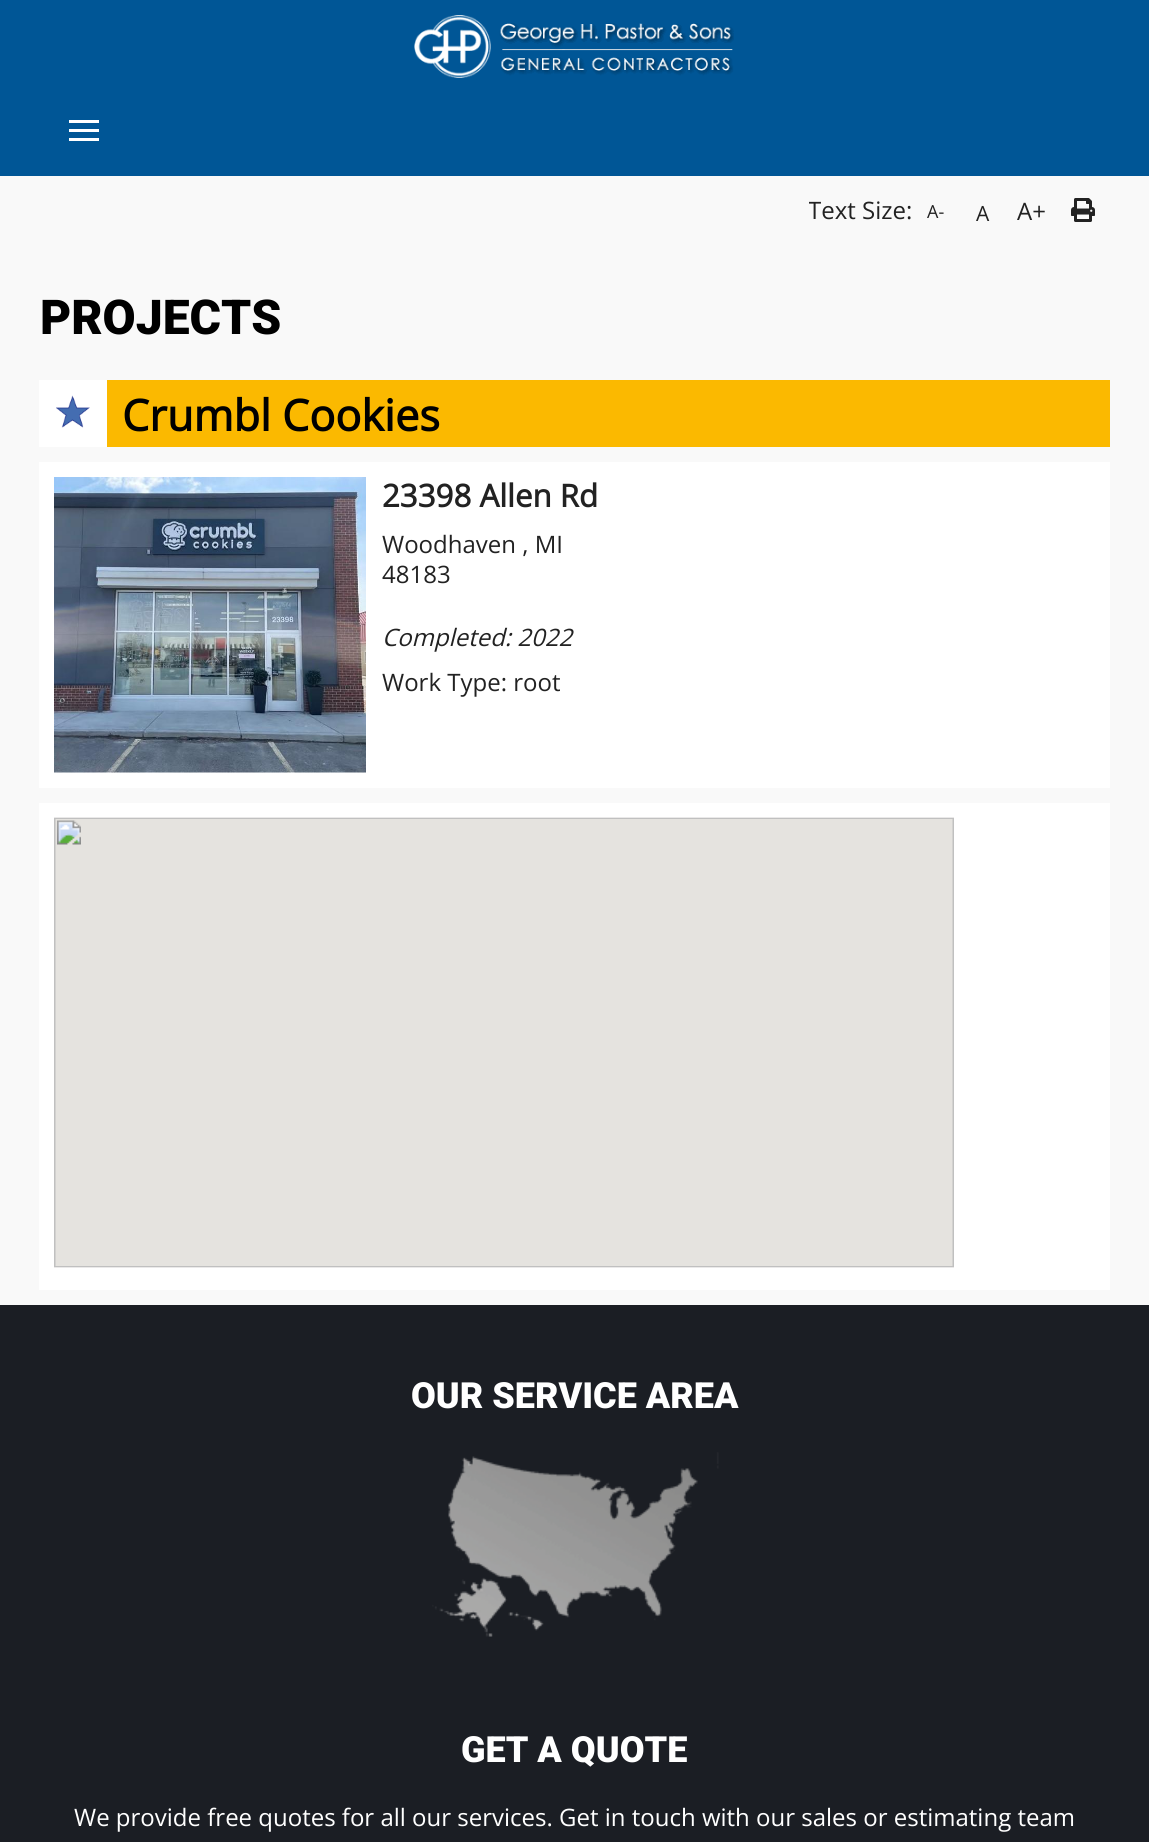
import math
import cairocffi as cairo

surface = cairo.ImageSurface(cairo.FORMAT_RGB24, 1149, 1842)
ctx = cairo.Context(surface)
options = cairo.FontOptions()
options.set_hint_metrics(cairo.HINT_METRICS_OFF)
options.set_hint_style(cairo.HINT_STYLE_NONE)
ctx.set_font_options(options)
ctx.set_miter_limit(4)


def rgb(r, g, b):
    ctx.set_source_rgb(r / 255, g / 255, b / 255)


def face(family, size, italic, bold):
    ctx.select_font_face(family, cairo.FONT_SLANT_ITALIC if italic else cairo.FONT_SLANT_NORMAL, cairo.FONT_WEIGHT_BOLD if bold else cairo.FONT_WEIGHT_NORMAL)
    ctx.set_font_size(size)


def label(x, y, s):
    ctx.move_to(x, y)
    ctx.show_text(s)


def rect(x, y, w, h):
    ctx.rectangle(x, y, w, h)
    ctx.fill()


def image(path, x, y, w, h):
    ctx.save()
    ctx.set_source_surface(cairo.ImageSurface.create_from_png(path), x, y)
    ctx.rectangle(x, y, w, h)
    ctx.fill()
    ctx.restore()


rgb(249, 249, 249)
ctx.paint()
rgb(0, 86, 150)
rect(0, 0, 1149, 176)
image('image0.png', 414, 15, 320, 63)
rgb(255, 255, 255)
rect(69, 138, 30, 3)
rect(69, 120, 30, 3)
rect(69, 129, 30, 3)
ctx.save()
ctx.rectangle(809, 191, 301, 43)
ctx.clip()
face('Open Sans', 24, 0, 0)
rgb(34, 34, 34)
label(808, 219, 'Text Size:')
ctx.restore()
face('Open Sans', 18, 0, 0)
rgb(34, 34, 34)
label(927, 218, 'A-')
face('Open Sans', 21, 0, 0)
label(976, 221, 'A')
face('Open Sans', 24, 0, 0)
label(1017, 220, 'A+')
image('image1.png', 1071, 198, 24, 24)
face('Roboto Black', 48, 0, 0)
rgb(0, 0, 0)
label(40, 334, 'PROJECTS')
rgb(251, 185, 0)
rect(107, 380, 1003, 67)
rgb(255, 255, 255)
rect(39, 380, 68, 67)
image('image2.png', 56, 395, 34, 33)
face('Open Sans', 43.25, 0, 1)
rgb(0, 0, 0)
label(122, 431, 'Crumbl Cookies')
rgb(255, 255, 255)
rect(39, 462, 1071, 326)
image('image3.png', 54, 477, 312, 296)
face('Open Sans', 31.25, 0, 1)
rgb(34, 34, 34)
label(382, 507, '23398 Allen Rd')
face('Open Sans', 24, 0, 0)
label(382, 553, 'Woodhaven , MI')
label(382, 583, '48183')
face('Open Sans', 24, 1, 0)
label(382, 646, 'Completed: 2022')
face('Open Sans', 24, 0, 0)
label(382, 691, 'Work Type: root')
rgb(255, 255, 255)
rect(39, 803, 1071, 487)
image('image4.png', 54, 817, 900, 451)
rgb(27, 30, 36)
rect(0, 1305, 1149, 537)
face('Roboto Black', 36, 0, 0)
rgb(255, 255, 255)
label(411, 1408, 'OUR SERVICE AREA')
image('image5.png', 432, 1452, 287, 185)
label(461, 1762, 'GET A QUOTE')
face('Open Sans', 24, 0, 0)
label(74, 1826, 'We provide free quotes for all our services. Get in touch with our sales or estimating team')
surface.write_to_png('render.png')
